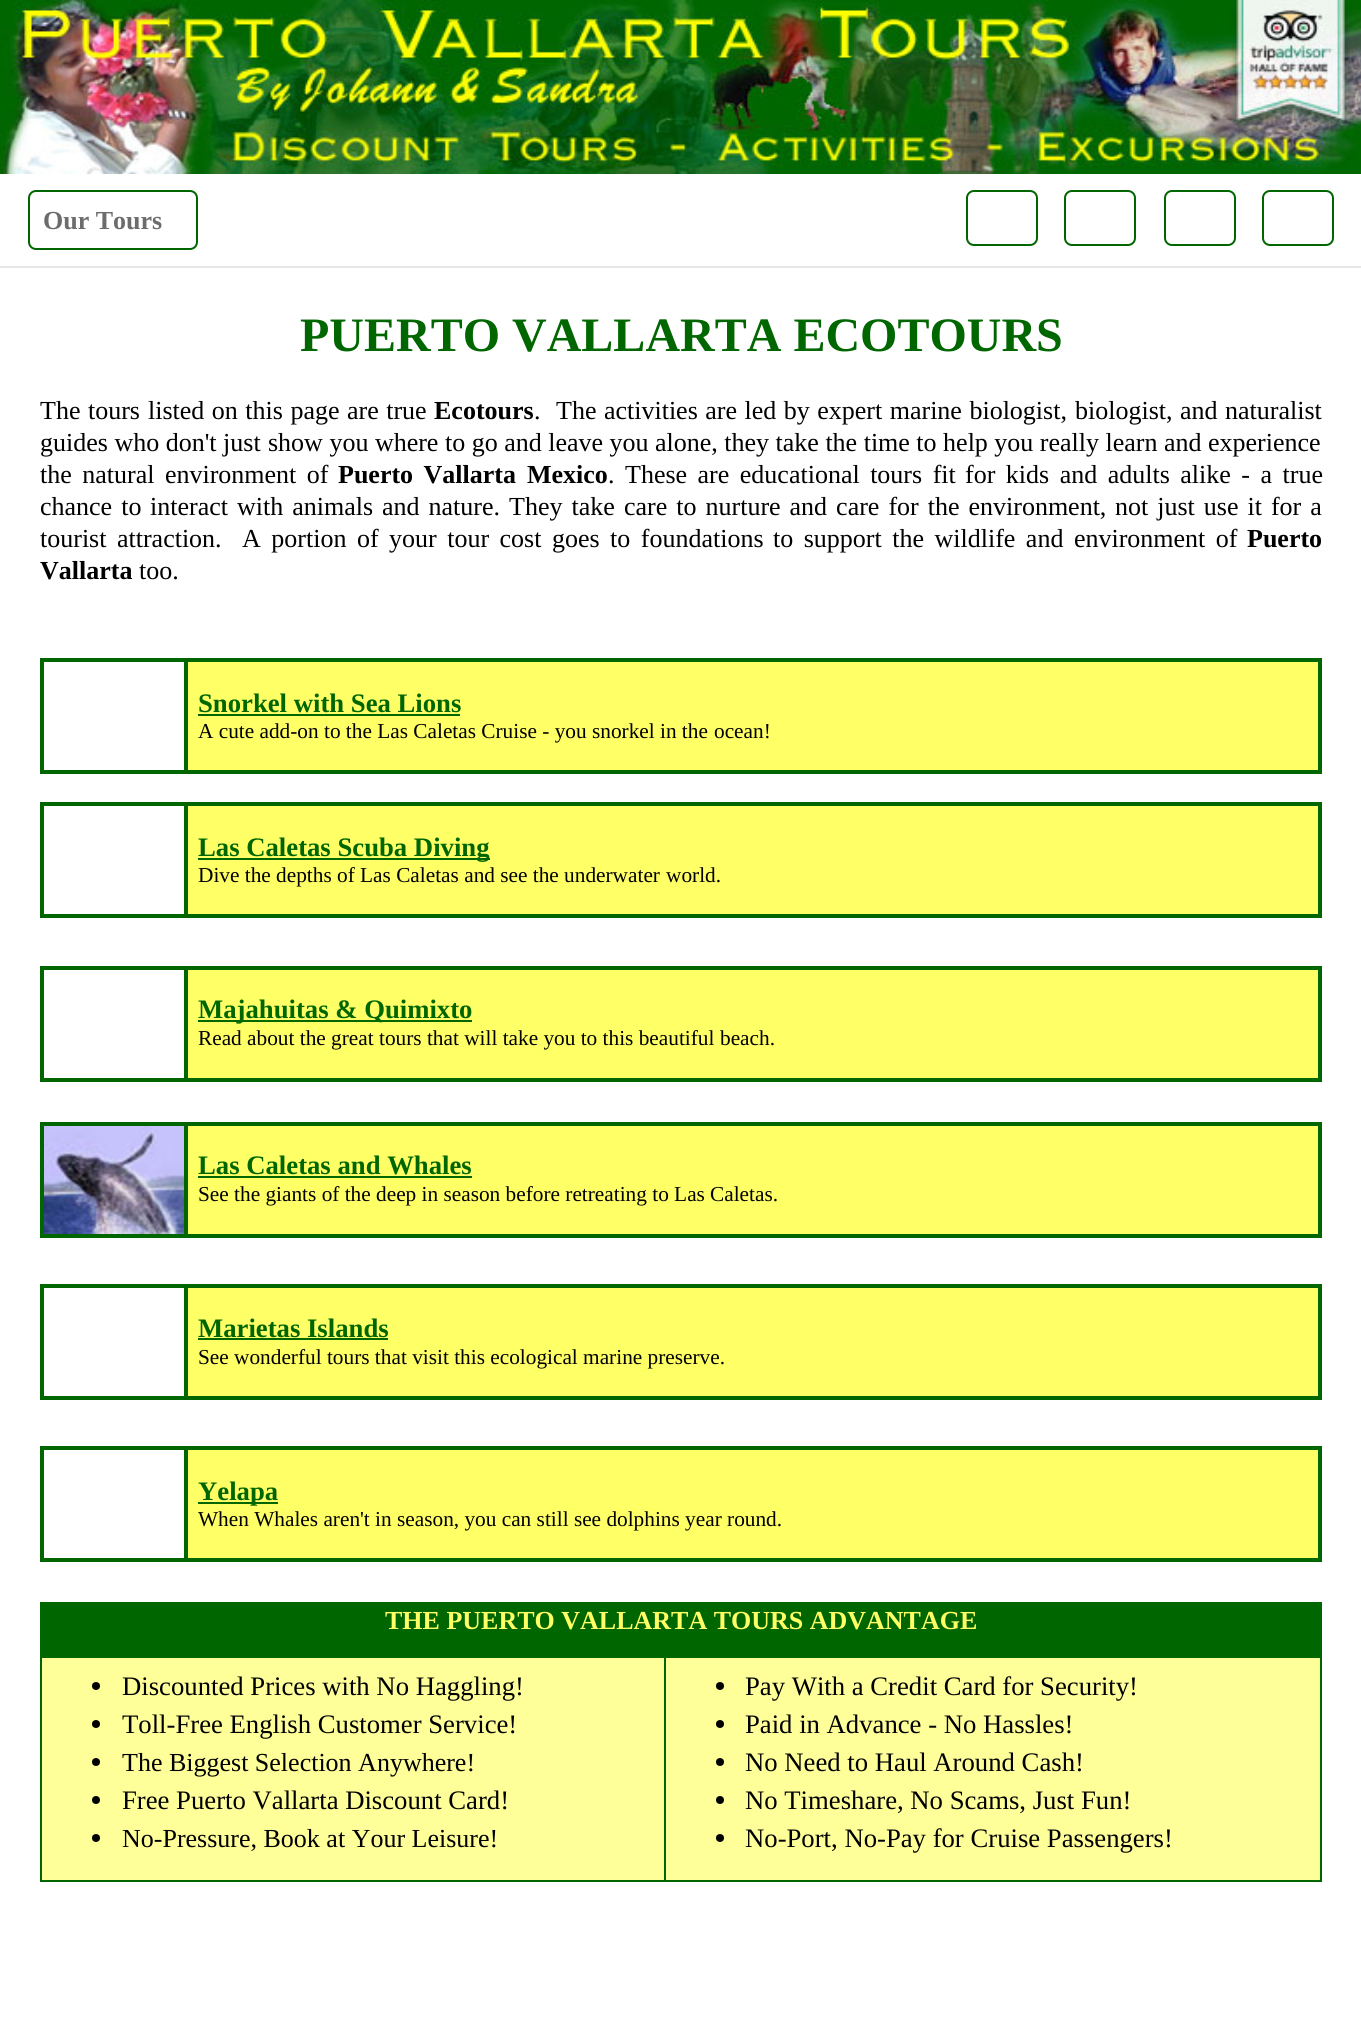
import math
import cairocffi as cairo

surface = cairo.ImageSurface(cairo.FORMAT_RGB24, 1361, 2026)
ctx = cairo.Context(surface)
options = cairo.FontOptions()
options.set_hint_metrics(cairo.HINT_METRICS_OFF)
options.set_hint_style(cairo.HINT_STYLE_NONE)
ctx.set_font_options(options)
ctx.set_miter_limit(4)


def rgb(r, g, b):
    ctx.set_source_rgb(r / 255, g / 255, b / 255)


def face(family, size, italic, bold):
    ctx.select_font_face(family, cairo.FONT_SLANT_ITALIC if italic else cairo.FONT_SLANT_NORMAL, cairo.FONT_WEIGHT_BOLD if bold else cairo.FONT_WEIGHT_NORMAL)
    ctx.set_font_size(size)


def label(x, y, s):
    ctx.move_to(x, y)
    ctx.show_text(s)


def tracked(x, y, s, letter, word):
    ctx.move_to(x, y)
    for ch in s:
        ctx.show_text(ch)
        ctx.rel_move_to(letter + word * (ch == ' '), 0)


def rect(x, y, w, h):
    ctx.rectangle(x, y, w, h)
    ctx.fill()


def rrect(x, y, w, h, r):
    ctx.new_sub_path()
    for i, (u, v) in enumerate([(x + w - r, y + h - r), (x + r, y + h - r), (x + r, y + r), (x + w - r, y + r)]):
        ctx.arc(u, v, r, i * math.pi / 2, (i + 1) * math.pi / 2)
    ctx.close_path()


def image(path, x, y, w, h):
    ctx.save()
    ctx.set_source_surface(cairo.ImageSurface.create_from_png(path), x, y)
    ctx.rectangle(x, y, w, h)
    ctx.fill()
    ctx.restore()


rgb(255, 255, 255)
ctx.paint()
image('image0.png', 0, 0, 1361, 174)
rgb(231, 231, 231)
rect(0, 266, 1361, 2)
rrect(29, 191, 168, 58, 7)
rgb(0, 102, 0)
ctx.stroke()
face('Liberation Serif', 26, 0, 1)
rgb(109, 107, 107)
label(43, 229, 'Our Tours')
rrect(967, 191, 70, 54, 7)
rgb(0, 102, 0)
ctx.stroke()
rrect(1065, 191, 70, 54, 7)
ctx.stroke()
rrect(1165, 191, 70, 54, 7)
ctx.stroke()
rrect(1263, 191, 70, 54, 7)
ctx.stroke()
face('Liberation Serif', 48, 0, 1)
label(300, 351, 'PUERTO VALLARTA ECOTOURS')
face('Liberation Serif', 26, 0, 0)
rgb(0, 0, 0)
tracked(40, 419, 'The tours', 0, 1)
tracked(148, 419, 'listed on this page are true', 0, 1)
face('Liberation Serif', 26, 0, 1)
label(434, 419, 'Ecotours')
face('Liberation Serif', 26, 0, 0)
label(534, 419, '.')
tracked(556, 419, 'The activities are led by expert marine biologist,', 0, 1)
tracked(1075, 419, 'biologist, and naturalist', 0, 1)
label(40, 451, 'guides who don\'t just')
label(268, 451, 'show you where to go and leave you alone, they take the time to help you really learn and experience')
tracked(40, 483, 'the natural environment of', 0, 4)
face('Liberation Serif', 26, 0, 1)
tracked(338, 483, 'Puerto Vallarta', 0, 4)
label(527, 483, 'Mexico')
face('Liberation Serif', 26, 0, 0)
tracked(608, 483, '. These are educational tours fit', 0, 4)
tracked(965, 483, 'for kids and adults alike - a true', 0, 4)
tracked(40, 515, 'chance to', 0, 2.5)
tracked(150, 515, 'interact with animals and nature. They take', 0, 2.5)
tracked(624, 515, 'care to nurture and care for the environment,', 0, 2.5)
tracked(1115, 515, 'not just use it for a', 0, 2.5)
tracked(40, 547, 'tourist attraction.', 0, 4)
tracked(242, 547, 'A portion of your tour cost goes to foundations', 0, 4)
tracked(773, 547, 'to support the wildlife and environment of', 0, 4)
face('Liberation Serif', 26, 0, 1)
label(1247, 547, 'Puerto')
label(40, 579, 'Vallarta')
face('Liberation Serif', 26, 0, 0)
label(139, 579, 'too.')
rgb(0, 102, 0)
rect(40, 658, 1282, 4)
rect(1318, 658, 4, 116)
rect(184, 770, 1138, 4)
rect(184, 658, 4, 116)
rect(40, 770, 148, 4)
rect(40, 658, 4, 116)
rgb(255, 255, 102)
rect(188, 662, 1130, 108)
face('Liberation Serif', 26.7, 0, 1)
rgb(0, 102, 0)
label(198, 712, 'Snorkel with Sea Lions')
rect(198, 714, 262, 2)
face('Liberation Serif', 21.3, 0, 0)
rgb(0, 0, 0)
label(198, 738, 'A cute add-on to the Las Caletas Cruise - you snorkel in the')
label(714, 738, 'ocean!')
rgb(0, 102, 0)
rect(40, 802, 1282, 4)
rect(1318, 802, 4, 116)
rect(184, 914, 1138, 4)
rect(184, 802, 4, 116)
rect(40, 914, 148, 4)
rect(40, 802, 4, 116)
rgb(255, 255, 102)
rect(188, 806, 1130, 108)
rgb(0, 102, 0)
rect(198, 858, 292, 2)
face('Liberation Serif', 26.7, 0, 1)
label(198, 856, 'Las Caletas Scuba Diving')
face('Liberation Serif', 21.3, 0, 0)
rgb(0, 0, 0)
label(198, 882, 'Dive the depths of Las Caletas and see the underwater')
label(666, 882, 'world.')
rgb(0, 102, 0)
rect(40, 966, 1282, 4)
rect(1318, 966, 4, 116)
rect(184, 1078, 1138, 4)
rect(184, 966, 4, 116)
rect(40, 1078, 148, 4)
rect(40, 966, 4, 116)
rgb(255, 255, 102)
rect(188, 970, 1130, 108)
rgb(0, 102, 0)
rect(198, 1020, 274, 2)
face('Liberation Serif', 26.7, 0, 1)
label(198, 1018, 'Majahuitas & Quimixto')
face('Liberation Serif', 21.3, 0, 0)
rgb(0, 0, 0)
label(198, 1045, 'Read about the great tours that will take you to this beautiful')
label(720, 1045, 'beach.')
rgb(0, 102, 0)
rect(40, 1122, 1282, 4)
rect(1318, 1122, 4, 116)
rect(184, 1234, 1138, 4)
rect(184, 1122, 4, 116)
rect(40, 1234, 148, 4)
rect(40, 1122, 4, 116)
image('image1.png', 44, 1126, 140, 108)
rgb(255, 255, 102)
rect(188, 1126, 1130, 108)
face('Liberation Serif', 26.7, 0, 1)
rgb(0, 102, 0)
label(198, 1174, 'Las Caletas and Whales')
rect(198, 1176, 274, 2)
face('Liberation Serif', 21.3, 0, 0)
rgb(0, 0, 0)
label(198, 1201, 'See the giants of the deep in season before retreating to Las')
label(710, 1201, 'Caletas.')
rgb(0, 102, 0)
rect(40, 1284, 1282, 4)
rect(1318, 1284, 4, 116)
rect(184, 1396, 1138, 4)
rect(184, 1284, 4, 116)
rect(40, 1396, 148, 4)
rect(40, 1284, 4, 116)
rgb(255, 255, 102)
rect(188, 1288, 1130, 108)
face('Liberation Serif', 26.7, 0, 1)
rgb(0, 102, 0)
label(198, 1337, 'Marietas Islands')
rect(198, 1338, 190, 2)
face('Liberation Serif', 21.3, 0, 0)
rgb(0, 0, 0)
label(198, 1364, 'See wonderful tours that visit this ecological marine preserve.')
rgb(0, 102, 0)
rect(40, 1446, 1282, 4)
rect(1318, 1446, 4, 116)
rect(184, 1558, 1138, 4)
rect(184, 1446, 4, 116)
rect(40, 1558, 148, 4)
rect(40, 1446, 4, 116)
rgb(255, 255, 102)
rect(188, 1450, 1130, 108)
rgb(0, 102, 0)
rect(198, 1502, 80, 2)
face('Liberation Serif', 26.7, 0, 1)
label(198, 1500, 'Yelapa')
face('Liberation Serif', 21.3, 0, 0)
rgb(0, 0, 0)
label(198, 1526, 'When Whales aren\'t in season, you can still see dolphins year round.')
rgb(0, 102, 0)
rect(40, 1602, 1280, 278)
rect(1320, 1602, 2, 280)
rect(40, 1880, 1282, 2)
face('Liberation Serif', 26, 0, 1)
rgb(255, 255, 102)
label(385, 1629, 'THE PUERTO VALLARTA TOURS ADVANTAGE')
rgb(255, 255, 153)
rect(42, 1658, 622, 222)
rgb(0, 0, 0)
ctx.new_path()
ctx.arc(96, 1686, 4, 0, 2 * math.pi)
ctx.fill()
face('Liberation Serif', 26.7, 0, 0)
label(122, 1695, 'Discounted Prices with No Haggling!')
ctx.new_path()
ctx.arc(96, 1724, 4, 0, 2 * math.pi)
ctx.fill()
label(122, 1733, 'Toll-Free English Customer Service!')
ctx.new_path()
ctx.arc(96, 1762, 4, 0, 2 * math.pi)
ctx.fill()
face('Liberation Serif', 26, 0, 0)
label(122, 1771, 'The Biggest Selection Anywhere!')
ctx.new_path()
ctx.arc(96, 1800, 4, 0, 2 * math.pi)
ctx.fill()
face('Liberation Serif', 26.7, 0, 0)
label(122, 1809, 'Free Puerto Vallarta Discount Card!')
ctx.new_path()
ctx.arc(96, 1838, 4, 0, 2 * math.pi)
ctx.fill()
face('Liberation Serif', 26, 0, 0)
label(122, 1847, 'No-Pressure, Book at Your Leisure!')
rgb(255, 255, 153)
rect(666, 1658, 654, 222)
rgb(0, 0, 0)
ctx.new_path()
ctx.arc(720, 1686, 4, 0, 2 * math.pi)
ctx.fill()
face('Liberation Serif', 26.7, 0, 0)
label(745, 1695, 'Pay With a Credit Card for Security!')
ctx.new_path()
ctx.arc(720, 1724, 4, 0, 2 * math.pi)
ctx.fill()
label(745, 1733, 'Paid in Advance - No Hassles!')
ctx.new_path()
ctx.arc(720, 1762, 4, 0, 2 * math.pi)
ctx.fill()
label(745, 1771, 'No Need to Haul Around Cash!')
ctx.new_path()
ctx.arc(720, 1800, 4, 0, 2 * math.pi)
ctx.fill()
label(745, 1809, 'No Timeshare, No Scams, Just Fun!')
ctx.new_path()
ctx.arc(720, 1838, 4, 0, 2 * math.pi)
ctx.fill()
label(745, 1847, 'No-Port, No-Pay for Cruise Passengers!')
surface.write_to_png('render.png')
